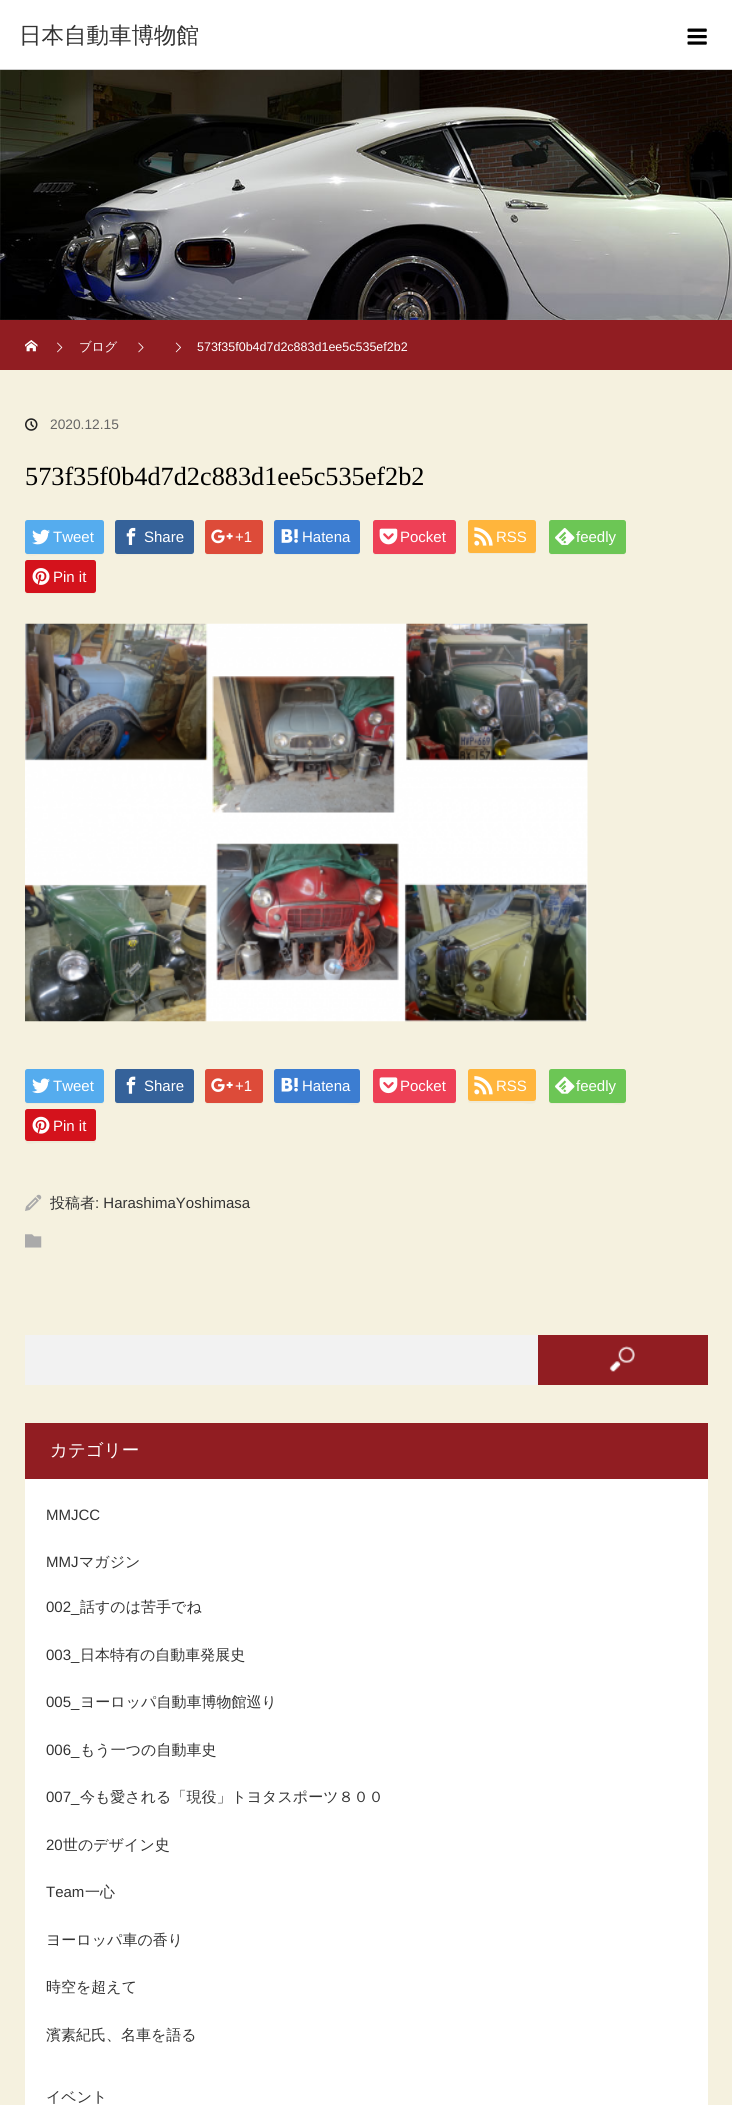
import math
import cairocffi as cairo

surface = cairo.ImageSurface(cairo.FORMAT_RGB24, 732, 2105)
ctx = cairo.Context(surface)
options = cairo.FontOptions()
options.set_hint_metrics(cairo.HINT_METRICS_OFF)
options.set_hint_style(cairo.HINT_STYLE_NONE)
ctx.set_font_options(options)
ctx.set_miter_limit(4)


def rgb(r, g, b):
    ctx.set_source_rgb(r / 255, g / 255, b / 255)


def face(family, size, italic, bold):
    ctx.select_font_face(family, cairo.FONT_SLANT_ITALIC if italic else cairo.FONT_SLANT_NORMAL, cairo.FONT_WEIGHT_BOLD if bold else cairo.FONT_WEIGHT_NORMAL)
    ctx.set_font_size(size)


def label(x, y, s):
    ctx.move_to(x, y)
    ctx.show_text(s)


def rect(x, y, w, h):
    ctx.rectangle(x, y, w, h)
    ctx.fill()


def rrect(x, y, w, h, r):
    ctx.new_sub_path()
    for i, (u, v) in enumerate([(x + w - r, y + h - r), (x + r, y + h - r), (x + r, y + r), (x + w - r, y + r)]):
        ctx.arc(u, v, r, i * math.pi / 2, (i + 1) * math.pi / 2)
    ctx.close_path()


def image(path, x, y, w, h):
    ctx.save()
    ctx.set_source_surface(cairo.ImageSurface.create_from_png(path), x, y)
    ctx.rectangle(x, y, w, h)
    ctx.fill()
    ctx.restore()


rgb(255, 255, 255)
ctx.paint()
rgb(204, 204, 204)
rect(0, 69, 732, 1)
face('WenQuanYi Zen Hei Medium', 22.5, 0, 0)
rgb(51, 51, 51)
label(19, 43, '日本自動車博物館')
image('image0.png', 687, 28, 20, 17)
rgb(245, 241, 223)
rect(0, 370, 732, 1735)
image('image1.png', 0, 70, 732, 250)
rgb(145, 29, 34)
rect(0, 320, 732, 50)
image('image2.png', 25, 340, 13, 12)
image('image3.png', 57, 342, 6, 11)
face('WenQuanYi Zen Hei Medium', 12.5, 0, 0)
rgb(255, 255, 255)
label(79, 351, 'ブログ')
image('image4.png', 138, 342, 6, 11)
image('image5.png', 175, 342, 6, 11)
face('Liberation Sans', 12.5, 0, 0)
label(197, 351, '573f35f0b4d7d2c883d1ee5c535ef2b2')
image('image6.png', 25, 418, 13, 13)
face('Liberation Sans', 13.75, 0, 0)
rgb(102, 102, 102)
label(50, 429, '2020.12.15')
face('Liberation Serif', 26.25, 0, 0)
rgb(0, 0, 0)
label(25, 485, '573f35f0b4d7d2c883d1ee5c535ef2b2')
rgb(238, 234, 216)
ctx.new_path()
ctx.move_to(25, 551)
ctx.curve_to(25, 558, 35, 555, 40, 555)
ctx.line_to(89, 555)
ctx.curve_to(108, 555, 104, 557, 104, 538)
ctx.line_to(104, 522)
ctx.line_to(104, 546)
ctx.curve_to(104, 557, 102, 554, 89, 554)
ctx.line_to(40, 554)
ctx.curve_to(35, 554, 25, 556, 25, 551)
ctx.close_path()
ctx.fill()
rgb(85, 172, 238)
rrect(25, 520, 79, 34, 2.5)
ctx.fill()
image('image7.png', 32, 529, 18, 16)
face('Liberation Sans', 15, 0, 0)
rgb(255, 255, 255)
label(53, 542, 'Tweet')
rgb(238, 234, 216)
ctx.new_path()
ctx.move_to(115, 551)
ctx.curve_to(115, 558, 125, 555, 130, 555)
ctx.line_to(179, 555)
ctx.curve_to(198, 555, 194, 557, 194, 538)
ctx.line_to(194, 522)
ctx.line_to(194, 546)
ctx.curve_to(194, 557, 192, 554, 179, 554)
ctx.line_to(130, 554)
ctx.curve_to(125, 554, 115, 556, 115, 551)
ctx.close_path()
ctx.fill()
rgb(53, 98, 154)
rrect(115, 520, 79, 34, 2.5)
ctx.fill()
image('image8.png', 126, 527, 10, 18)
rgb(255, 255, 255)
label(144, 542, 'Share')
rgb(238, 234, 216)
ctx.new_path()
ctx.move_to(205, 551)
ctx.curve_to(205, 553, 205, 555, 208, 555)
ctx.line_to(252, 555)
ctx.curve_to(262, 555, 263, 557, 263, 548)
ctx.line_to(263, 538)
ctx.curve_to(263, 535, 264, 524, 262, 522)
ctx.line_to(262, 542)
ctx.curve_to(262, 555, 265, 554, 251, 554)
ctx.line_to(216, 554)
ctx.curve_to(216, 554, 205, 556, 205, 551)
ctx.close_path()
ctx.fill()
rgb(221, 75, 57)
rrect(205, 520, 58, 34, 2.5)
ctx.fill()
image('image9.png', 211, 529, 22, 15)
rgb(255, 255, 255)
label(235, 542, '+1')
rgb(238, 234, 216)
ctx.new_path()
ctx.move_to(274, 552)
ctx.curve_to(274, 554, 275, 555, 276, 555)
ctx.line_to(358, 555)
ctx.curve_to(359, 555, 360, 554, 360, 552)
ctx.line_to(360, 551)
ctx.curve_to(360, 553, 359, 554, 358, 554)
ctx.line_to(276, 554)
ctx.curve_to(275, 554, 274, 553, 274, 552)
ctx.close_path()
ctx.fill()
rgb(60, 125, 209)
rrect(274, 520, 86, 34, 2.5)
ctx.fill()
image('image10.png', 281, 529, 17, 14)
rgb(255, 255, 255)
label(302, 542, 'Hatena')
rgb(238, 234, 216)
ctx.new_path()
ctx.move_to(373, 553)
ctx.curve_to(373, 554, 374, 555, 376, 555)
ctx.line_to(454, 555)
ctx.curve_to(455, 555, 456, 554, 456, 552)
ctx.line_to(454, 554)
ctx.curve_to(446, 554, 375, 555, 374, 553)
ctx.close_path()
ctx.fill()
rgb(238, 64, 86)
rrect(373, 520, 83, 34, 2.5)
ctx.fill()
image('image11.png', 379, 528, 19, 17)
rgb(255, 255, 255)
label(400, 542, 'Pocket')
rgb(238, 234, 216)
ctx.new_path()
ctx.move_to(468, 552)
ctx.curve_to(468, 553, 469, 554, 470, 554)
ctx.line_to(534, 554)
ctx.curve_to(535, 554, 536, 553, 536, 552)
ctx.line_to(536, 551)
ctx.line_to(534, 552)
ctx.line_to(470, 552)
ctx.close_path()
ctx.fill()
rgb(255, 181, 60)
rrect(468, 520, 68, 33, 2.5)
ctx.fill()
image('image12.png', 474, 527, 19, 19)
rgb(255, 255, 255)
label(496, 542, 'RSS')
rgb(238, 234, 216)
ctx.new_path()
ctx.move_to(549, 552)
ctx.curve_to(549, 553, 550, 554, 551, 555)
ctx.line_to(624, 555)
ctx.curve_to(625, 554, 626, 553, 626, 552)
ctx.line_to(625, 554)
ctx.line_to(563, 554)
ctx.curve_to(563, 554, 551, 556, 549, 552)
ctx.close_path()
ctx.fill()
rgb(108, 198, 85)
rrect(549, 520, 77, 34, 2.5)
ctx.fill()
image('image13.png', 555, 528, 20, 17)
rgb(255, 255, 255)
label(576, 542, 'feedly')
rgb(238, 234, 216)
ctx.new_path()
ctx.move_to(25, 590)
ctx.line_to(25, 592)
ctx.curve_to(25, 593, 26, 594, 28, 594)
ctx.line_to(94, 594)
ctx.curve_to(95, 594, 96, 593, 96, 592)
ctx.line_to(96, 591)
ctx.line_to(94, 592)
ctx.line_to(28, 592)
ctx.line_to(26, 592)
ctx.close_path()
ctx.fill()
rgb(212, 18, 28)
rrect(25, 560, 71, 33, 2.5)
ctx.fill()
image('image14.png', 32, 568, 18, 17)
rgb(255, 255, 255)
label(53, 582, 'Pin it')
image('image15.png', 25, 623, 563, 399)
rgb(238, 234, 216)
ctx.new_path()
ctx.move_to(25, 1100)
ctx.curve_to(25, 1102, 25, 1104, 28, 1104)
ctx.line_to(102, 1104)
ctx.curve_to(105, 1104, 104, 1098, 104, 1097)
ctx.line_to(104, 1071)
ctx.line_to(104, 1100)
ctx.curve_to(104, 1101, 103, 1102, 101, 1102)
ctx.line_to(28, 1102)
ctx.curve_to(26, 1102, 25, 1101, 25, 1100)
ctx.close_path()
ctx.fill()
rgb(85, 172, 238)
rrect(25, 1069, 79, 34, 2.5)
ctx.fill()
image('image16.png', 32, 1078, 18, 16)
rgb(255, 255, 255)
label(53, 1091, 'Tweet')
rgb(238, 234, 216)
ctx.new_path()
ctx.move_to(115, 1100)
ctx.curve_to(115, 1102, 115, 1104, 118, 1104)
ctx.line_to(192, 1104)
ctx.curve_to(195, 1104, 194, 1098, 194, 1097)
ctx.line_to(194, 1071)
ctx.line_to(194, 1100)
ctx.curve_to(194, 1101, 193, 1102, 191, 1102)
ctx.line_to(118, 1102)
ctx.curve_to(116, 1102, 115, 1101, 115, 1100)
ctx.close_path()
ctx.fill()
rgb(53, 98, 154)
rrect(115, 1069, 79, 34, 2.5)
ctx.fill()
image('image17.png', 126, 1076, 10, 18)
rgb(255, 255, 255)
label(144, 1091, 'Share')
rgb(238, 234, 216)
ctx.new_path()
ctx.move_to(205, 1100)
ctx.line_to(205, 1102)
ctx.curve_to(205, 1103, 206, 1104, 208, 1104)
ctx.line_to(260, 1104)
ctx.curve_to(262, 1104, 263, 1103, 263, 1102)
ctx.line_to(263, 1072)
ctx.line_to(262, 1071)
ctx.line_to(262, 1090)
ctx.curve_to(262, 1104, 265, 1102, 251, 1102)
ctx.line_to(216, 1102)
ctx.curve_to(216, 1102, 205, 1105, 205, 1100)
ctx.close_path()
ctx.fill()
rgb(221, 75, 57)
rrect(205, 1069, 58, 34, 2.5)
ctx.fill()
image('image18.png', 211, 1078, 22, 14)
rgb(255, 255, 255)
label(235, 1091, '+1')
rgb(238, 234, 216)
ctx.new_path()
ctx.move_to(274, 1101)
ctx.line_to(275, 1103)
ctx.curve_to(276, 1105, 324, 1104, 330, 1104)
ctx.line_to(344, 1104)
ctx.curve_to(350, 1104, 360, 1108, 360, 1100)
ctx.curve_to(360, 1101, 359, 1102, 358, 1102)
ctx.line_to(276, 1102)
ctx.curve_to(275, 1102, 274, 1102, 274, 1101)
ctx.close_path()
ctx.fill()
rgb(60, 125, 209)
rrect(274, 1069, 86, 34, 2.5)
ctx.fill()
image('image19.png', 281, 1077, 17, 15)
rgb(255, 255, 255)
label(302, 1091, 'Hatena')
rgb(238, 234, 216)
ctx.new_path()
ctx.move_to(373, 1102)
ctx.curve_to(373, 1103, 374, 1104, 376, 1104)
ctx.line_to(454, 1104)
ctx.curve_to(455, 1104, 456, 1103, 456, 1101)
ctx.curve_to(456, 1102, 455, 1102, 454, 1102)
ctx.line_to(375, 1102)
ctx.curve_to(374, 1102, 373, 1102, 373, 1102)
ctx.close_path()
ctx.fill()
rgb(238, 64, 86)
rrect(373, 1069, 83, 34, 2.5)
ctx.fill()
image('image20.png', 379, 1077, 19, 17)
rgb(255, 255, 255)
label(400, 1091, 'Pocket')
rgb(238, 234, 216)
ctx.new_path()
ctx.move_to(468, 1100)
ctx.curve_to(468, 1102, 469, 1103, 470, 1103)
ctx.line_to(523, 1103)
ctx.curve_to(526, 1103, 536, 1106, 536, 1100)
ctx.line_to(534, 1101)
ctx.line_to(470, 1101)
ctx.close_path()
ctx.fill()
rgb(255, 181, 60)
rrect(468, 1069, 68, 32, 2.5)
ctx.fill()
image('image21.png', 474, 1076, 19, 19)
rgb(255, 255, 255)
label(496, 1091, 'RSS')
rgb(238, 234, 216)
ctx.new_path()
ctx.move_to(549, 1101)
ctx.curve_to(549, 1103, 550, 1104, 552, 1104)
ctx.line_to(612, 1104)
ctx.curve_to(612, 1104, 626, 1107, 626, 1101)
ctx.line_to(625, 1102)
ctx.line_to(563, 1102)
ctx.curve_to(563, 1102, 551, 1105, 549, 1101)
ctx.close_path()
ctx.fill()
rgb(108, 198, 85)
rrect(549, 1069, 77, 34, 2.5)
ctx.fill()
image('image22.png', 555, 1076, 20, 18)
rgb(255, 255, 255)
label(576, 1091, 'feedly')
rgb(238, 234, 216)
ctx.new_path()
ctx.move_to(25, 1139)
ctx.curve_to(25, 1146, 32, 1143, 38, 1143)
ctx.line_to(94, 1143)
ctx.curve_to(96, 1143, 96, 1141, 96, 1140)
ctx.line_to(94, 1141)
ctx.line_to(28, 1141)
ctx.line_to(26, 1141)
ctx.close_path()
ctx.fill()
rgb(212, 18, 28)
rrect(25, 1109, 71, 32, 2.5)
ctx.fill()
image('image23.png', 32, 1116, 18, 18)
rgb(255, 255, 255)
label(53, 1131, 'Pin it')
image('image24.png', 25, 1194, 17, 17)
face('WenQuanYi Zen Hei Medium', 15, 0, 0)
rgb(51, 51, 51)
label(50, 1208, '投稿者')
face('Liberation Sans', 15, 0, 0)
label(95, 1208, ': HarashimaYoshimasa')
image('image25.png', 25, 1234, 17, 14)
rgb(242, 242, 242)
rect(25, 1335, 513, 50)
rgb(145, 29, 34)
rect(538, 1335, 170, 50)
image('image26.png', 609, 1346, 26, 26)
rgb(255, 255, 255)
rect(25, 1479, 683, 626)
rgb(145, 29, 34)
rect(25, 1423, 683, 56)
face('WenQuanYi Zen Hei Medium', 17.5, 0, 0)
rgb(255, 255, 255)
label(50, 1456, 'カテゴリー')
face('Liberation Sans', 15, 0, 0)
rgb(51, 51, 51)
label(46, 1520, 'MMJCC')
label(46, 1567, 'MMJ')
face('WenQuanYi Zen Hei Medium', 15, 0, 0)
label(79, 1567, 'マガジン')
face('Liberation Sans', 15, 0, 0)
label(46, 1612, '002_')
face('WenQuanYi Zen Hei Medium', 15, 0, 0)
label(80, 1612, '話すのは苦手でね')
face('Liberation Sans', 15, 0, 0)
label(46, 1660, '003_')
face('WenQuanYi Zen Hei Medium', 15, 0, 0)
label(80, 1660, '日本特有の自動車発展史')
face('Liberation Sans', 15, 0, 0)
label(46, 1707, '005_')
face('WenQuanYi Zen Hei Medium', 15, 0, 0)
label(80, 1707, 'ヨーロッパ自動車博物館巡り')
face('Liberation Sans', 15, 0, 0)
label(46, 1755, '006_')
face('WenQuanYi Zen Hei Medium', 15, 0, 0)
label(80, 1755, 'もう一つの自動車史')
face('Liberation Sans', 15, 0, 0)
label(46, 1802, '007_')
face('WenQuanYi Zen Hei Medium', 15, 0, 0)
label(80, 1802, '今も愛される「現役」トヨタスポーツ８００')
face('Liberation Sans', 15, 0, 0)
label(46, 1850, '20')
face('WenQuanYi Zen Hei Medium', 15, 0, 0)
label(63, 1850, '世のデザイン史')
face('Liberation Sans', 15, 0, 0)
label(46, 1897, 'Team')
face('WenQuanYi Zen Hei Medium', 15, 0, 0)
label(85, 1897, '一心')
label(46, 1945, 'ヨーロッパ車の香り')
label(46, 1992, '時空を超えて')
label(46, 2040, '濱素紀氏、名車を語る')
label(46, 2102, 'イベント')
surface.write_to_png('render.png')
